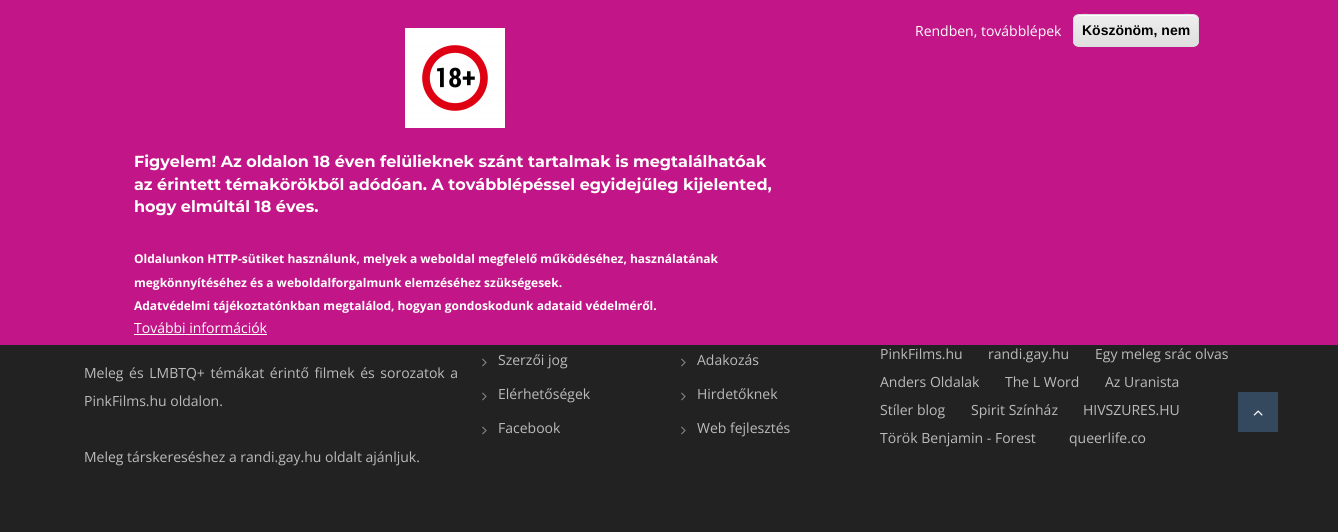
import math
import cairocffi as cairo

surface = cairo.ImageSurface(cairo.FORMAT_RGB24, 1338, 532)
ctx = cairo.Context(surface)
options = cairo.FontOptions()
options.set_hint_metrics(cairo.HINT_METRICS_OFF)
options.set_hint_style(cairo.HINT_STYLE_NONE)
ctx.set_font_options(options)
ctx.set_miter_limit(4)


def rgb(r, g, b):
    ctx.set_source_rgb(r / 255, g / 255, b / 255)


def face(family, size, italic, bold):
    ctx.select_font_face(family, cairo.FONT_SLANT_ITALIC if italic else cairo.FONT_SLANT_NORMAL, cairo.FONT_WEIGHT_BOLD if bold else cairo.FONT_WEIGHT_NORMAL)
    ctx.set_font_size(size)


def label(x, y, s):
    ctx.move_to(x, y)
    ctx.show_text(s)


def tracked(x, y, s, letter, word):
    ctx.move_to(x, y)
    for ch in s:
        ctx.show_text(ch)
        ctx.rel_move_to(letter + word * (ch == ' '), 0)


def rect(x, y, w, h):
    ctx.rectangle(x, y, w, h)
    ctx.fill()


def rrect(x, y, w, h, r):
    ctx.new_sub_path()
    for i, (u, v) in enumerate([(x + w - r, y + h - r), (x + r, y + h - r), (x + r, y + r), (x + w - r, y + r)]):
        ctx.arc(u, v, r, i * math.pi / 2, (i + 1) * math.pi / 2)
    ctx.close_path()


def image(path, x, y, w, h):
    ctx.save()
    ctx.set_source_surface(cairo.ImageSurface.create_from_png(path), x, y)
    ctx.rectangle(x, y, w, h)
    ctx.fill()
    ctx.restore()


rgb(34, 34, 34)
ctx.paint()
rgb(194, 21, 135)
rect(0, 0, 1338, 345)
face('Open Sans', 14, 0, 0)
rgb(255, 255, 255)
label(915, 36, 'Rendben, továbblépek')
ctx.save()
rrect(1073, 14, 126, 33, 6)
ctx.clip()
gradient = cairo.LinearGradient(1136, 15, 1136, 46)
gradient.add_color_stop_rgba(0.05, 0.929, 0.929, 0.929, 1)
gradient.add_color_stop_rgba(1, 0.875, 0.875, 0.875, 1)
ctx.set_source(gradient)
rect(1073, 15, 126, 31)
ctx.restore()
ctx.new_path()
ctx.move_to(1079, 16)
ctx.line_to(1193, 16)
ctx.curve_to(1196, 16, 1198, 18, 1198, 21)
ctx.curve_to(1198, 10, 1178, 15, 1174, 15)
ctx.line_to(1098, 15)
ctx.curve_to(1094, 15, 1074, 10, 1074, 21)
ctx.curve_to(1074, 18, 1076, 16, 1079, 16)
ctx.close_path()
ctx.fill()
rrect(1073.5, 14.5, 125, 32, 5.5)
rgb(220, 220, 220)
ctx.set_line_width(1)
ctx.stroke()
face('Liberation Sans', 14, 0, 1)
rgb(0, 0, 0)
label(1082, 35, 'Köszönöm, nem')
image('image0.png', 405, 28, 100, 100)
face('Montserrat', 16, 0, 1)
rgb(255, 255, 255)
label(134, 167, 'Figyelem! Az oldalon 18 éven felülieknek szánt tartalmak is megtalálhatóak')
label(134, 190, 'az érintett témakörökből adódóan. A továbblépéssel egyidejűleg kijelented,')
label(134, 212, 'hogy elmúltál 18 éves.')
face('Open Sans', 12, 0, 1)
label(134, 263, 'Oldalunkon HTTP-sütiket használunk, melyek a weboldal megfelelő működéséhez, használatának')
label(134, 287, 'megkönnyítéséhez és a weboldalforgalmunk elemzéséhez szükségesek.')
label(134, 310, 'Adatvédelmi tájékoztatónkban megtalálod, hogyan gondoskodunk adataid védelméről.')
face('Open Sans', 14, 0, 0)
label(134, 333, 'További információk')
rect(134, 334, 133, 1)
rgb(187, 187, 187)
tracked(84, 378, 'Meleg és LMBTQ+ témákat érintő filmek és sorozatok a', 0, 2)
label(84, 406, 'PinkFilms.hu oldalon.')
label(84, 462, 'Meleg társkereséshez a randi.gay.hu oldalt ajánljuk.')
image('image1.png', 482, 358, 5, 9)
label(498, 365, 'Szerzői jog')
image('image1.png', 482, 392, 5, 9)
label(498, 399, 'Elérhetőségek')
image('image1.png', 482, 426, 5, 9)
label(498, 433, 'Facebook')
image('image1.png', 681, 358, 5, 9)
label(697, 365, 'Adakozás')
image('image1.png', 681, 392, 5, 9)
label(697, 399, 'Hirdetőknek')
image('image1.png', 681, 426, 5, 9)
label(697, 433, 'Web fejlesztés')
label(880, 359, 'PinkFilms.hu')
label(988, 359, 'randi.gay.hu')
label(1095, 359, 'Egy meleg srác olvas')
label(880, 387, 'Anders Oldalak')
label(1005, 387, 'The L Word')
label(1105, 387, 'Az Uranista')
label(880, 415, 'Stíler blog')
label(971, 415, 'Spirit Színház')
label(1083, 415, 'HIVSZURES.HU')
label(880, 443, 'Török Benjamin - Forest')
label(1069, 443, 'queerlife.co')
rgb(52, 73, 94)
rect(1238, 392, 40, 40)
image('image2.png', 1253, 410, 10, 6)
surface.write_to_png('render.png')
